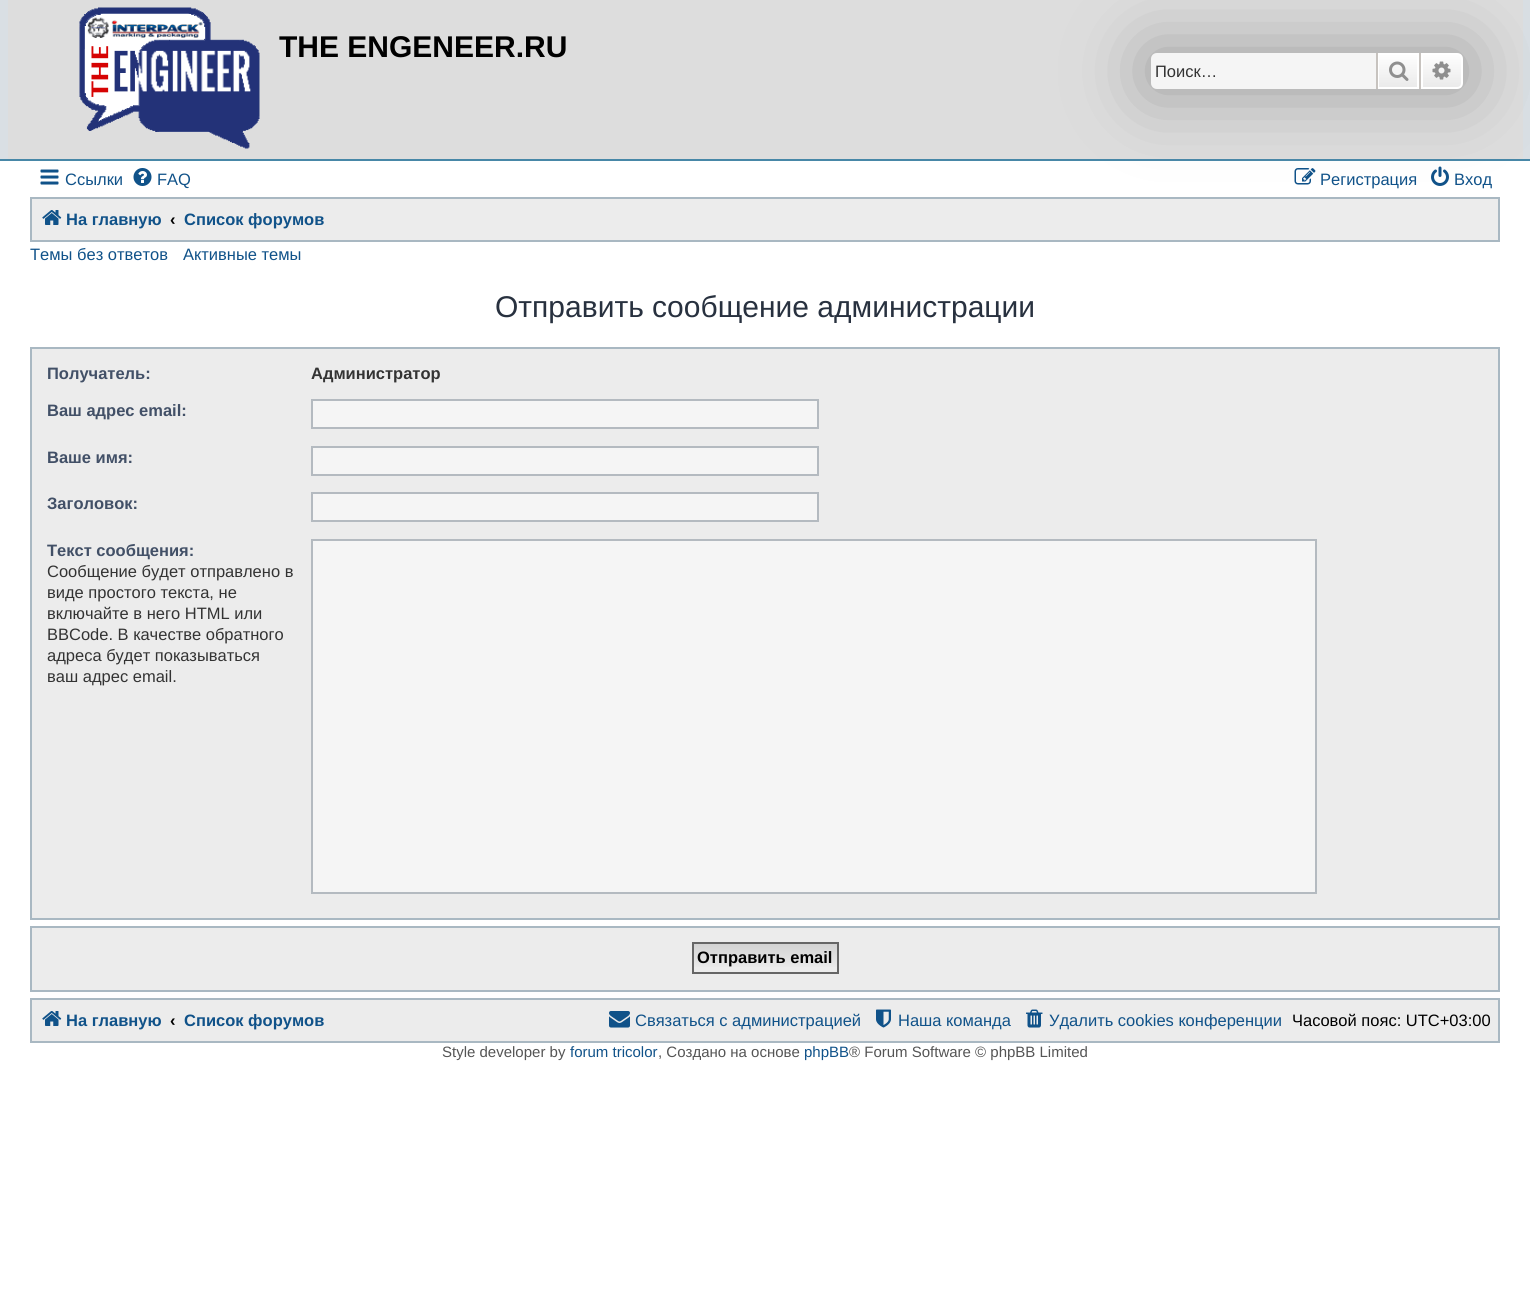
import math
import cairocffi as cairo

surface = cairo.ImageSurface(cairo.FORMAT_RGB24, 1530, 1308)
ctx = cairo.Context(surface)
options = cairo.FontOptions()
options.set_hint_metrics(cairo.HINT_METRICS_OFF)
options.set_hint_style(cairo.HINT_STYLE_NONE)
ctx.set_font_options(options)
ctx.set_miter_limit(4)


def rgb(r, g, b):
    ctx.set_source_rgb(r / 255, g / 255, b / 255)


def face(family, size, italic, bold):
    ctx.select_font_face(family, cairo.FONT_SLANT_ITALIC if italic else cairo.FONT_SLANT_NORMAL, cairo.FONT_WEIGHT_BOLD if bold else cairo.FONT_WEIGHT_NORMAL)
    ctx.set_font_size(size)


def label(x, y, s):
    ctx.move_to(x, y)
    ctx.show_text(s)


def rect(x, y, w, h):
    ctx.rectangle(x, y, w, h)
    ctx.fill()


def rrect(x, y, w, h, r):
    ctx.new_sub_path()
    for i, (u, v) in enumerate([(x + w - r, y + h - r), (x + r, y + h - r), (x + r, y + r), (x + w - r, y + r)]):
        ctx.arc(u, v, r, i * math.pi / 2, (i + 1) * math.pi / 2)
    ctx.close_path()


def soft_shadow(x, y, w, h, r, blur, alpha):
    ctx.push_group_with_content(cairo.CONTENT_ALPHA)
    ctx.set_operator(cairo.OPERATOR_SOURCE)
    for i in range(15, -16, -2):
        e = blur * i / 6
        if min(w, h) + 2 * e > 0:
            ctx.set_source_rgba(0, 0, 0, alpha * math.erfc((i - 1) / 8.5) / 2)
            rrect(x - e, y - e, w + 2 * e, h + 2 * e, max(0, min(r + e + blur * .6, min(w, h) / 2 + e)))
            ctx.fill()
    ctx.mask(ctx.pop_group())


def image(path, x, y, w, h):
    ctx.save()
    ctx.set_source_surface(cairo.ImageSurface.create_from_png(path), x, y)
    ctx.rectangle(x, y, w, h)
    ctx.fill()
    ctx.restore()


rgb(255, 255, 255)
ctx.paint()
rgb(217, 223, 228)
rect(0, 0, 1530, 159)
rgb(71, 135, 167)
rect(0, 159, 1530, 2)
rgb(221, 221, 221)
rect(8, 0, 1515, 159)
image('image0.png', 79, 7, 181, 142)
face('Liberation Sans', 30, 0, 1)
rgb(0, 0, 0)
label(279, 57, 'THE ENGENEER.RU')
rgb(236, 236, 236)
ctx.rectangle(31, 198, 1468, 43)
ctx.fill_preserve()
rgb(169, 184, 194)
ctx.stroke()
rgb(153, 153, 153)
soft_shadow(1151, 53, 312, 36, 6, 37.5, 1)
rgb(245, 245, 245)
ctx.new_path()
ctx.move_to(1157, 53)
ctx.line_to(1376, 53)
ctx.line_to(1376, 89)
ctx.line_to(1157, 89)
ctx.curve_to(1153.5, 89, 1151, 86.5, 1151, 83)
ctx.line_to(1151, 59)
ctx.curve_to(1151, 55.5, 1153.5, 53, 1157, 53)
ctx.close_path()
ctx.fill()
face('Liberation Sans', 16.5, 0, 0)
rgb(51, 51, 51)
label(1155, 77, 'Поиск…')
gradient = cairo.LinearGradient(1398, 53, 1398, 89)
gradient.add_color_stop_rgba(0, 1, 1, 1, 1)
gradient.add_color_stop_rgba(1, 0.914, 0.914, 0.914, 1)
ctx.set_source(gradient)
rect(1379, 55, 38, 32)
ctx.rectangle(1378, 54, 40, 34)
rgb(255, 255, 255)
ctx.stroke()
rgb(199, 195, 191)
rect(1419, 53, 2, 36)
rect(1376, 53, 2, 36)
image('image1.png', 1389, 61, 20, 20)
gradient = cairo.LinearGradient(1442, 53, 1442, 89)
gradient.add_color_stop_rgba(0, 1, 1, 1, 1)
gradient.add_color_stop_rgba(1, 0.914, 0.914, 0.914, 1)
ctx.set_source(gradient)
ctx.new_path()
ctx.move_to(1422, 54)
ctx.line_to(1457, 54)
ctx.curve_to(1460, 54, 1462, 56, 1462, 59)
ctx.line_to(1462, 83)
ctx.curve_to(1462, 86, 1460, 88, 1457, 88)
ctx.line_to(1422, 88)
ctx.close_path()
ctx.fill_preserve()
rgb(255, 255, 255)
ctx.stroke()
image('image2.png', 1432, 61, 19, 19)
image('image3.png', 40, 169, 19, 16)
rgb(16, 82, 137)
label(65, 185, 'Ссылки')
image('image4.png', 133, 168, 19, 18)
label(157, 185, 'FAQ')
image('image5.png', 1294, 168, 22, 17)
label(1320, 185, 'Регистрация')
image('image6.png', 1431, 166, 18, 20)
label(1454, 185, 'Вход')
image('image7.png', 42, 210, 20, 15)
face('Liberation Sans', 16.5, 0, 1)
label(66, 225, 'На главную')
rgb(0, 0, 0)
label(170, 225, '‹')
rgb(16, 82, 137)
label(184, 225, 'Список форумов')
face('Liberation Sans', 16.5, 0, 0)
label(30, 260, 'Темы без ответов')
label(183, 260, 'Активные темы')
face('Liberation Sans', 30, 0, 0)
rgb(40, 49, 63)
label(495, 317, 'Отправить сообщение администрации')
rgb(236, 236, 236)
ctx.rectangle(31, 348, 1468, 571)
ctx.fill_preserve()
rgb(169, 184, 194)
ctx.stroke()
face('Liberation Sans', 16.5, 0, 1)
rgb(66, 80, 103)
label(47, 379, 'Получатель:')
rgb(51, 51, 51)
label(311, 379, 'Администратор')
rgb(66, 80, 103)
label(47, 416, 'Ваш адрес email:')
rgb(245, 245, 245)
ctx.rectangle(312, 400, 506, 28)
ctx.fill_preserve()
rgb(180, 186, 192)
ctx.stroke()
rgb(66, 80, 103)
label(47, 463, 'Ваше имя:')
rgb(245, 245, 245)
ctx.rectangle(312, 447, 506, 28)
ctx.fill_preserve()
rgb(180, 186, 192)
ctx.stroke()
rgb(66, 80, 103)
label(47, 509, 'Заголовок:')
rgb(245, 245, 245)
ctx.rectangle(312, 493, 506, 28)
ctx.fill_preserve()
rgb(180, 186, 192)
ctx.stroke()
ctx.save()
ctx.rectangle(47, 533, 1437, 376)
ctx.clip()
rgb(66, 80, 103)
label(47, 556, 'Текст сообщения:')
ctx.restore()
face('Liberation Sans', 16.5, 0, 0)
rgb(51, 51, 51)
label(47, 577, 'Сообщение будет отправлено в')
label(47, 598, 'виде простого текста, не')
label(47, 619, 'включайте в него HTML или')
label(47, 640, 'BBCode. В качестве обратного')
label(47, 661, 'адреса будет показываться')
label(47, 682, 'ваш адрес email.')
rgb(245, 245, 245)
ctx.rectangle(312, 540, 1004, 353)
ctx.fill_preserve()
rgb(180, 186, 192)
ctx.stroke()
rgb(236, 236, 236)
ctx.rectangle(31, 927, 1468, 64)
ctx.fill_preserve()
rgb(169, 184, 194)
ctx.stroke()
gradient = cairo.LinearGradient(765, 944, 765, 972)
gradient.add_color_stop_rgba(0, 0.824, 0.824, 0.824, 1)
gradient.add_color_stop_rgba(1, 0.937, 0.937, 0.937, 1)
ctx.set_source(gradient)
rect(694, 944, 143, 23)
ctx.rectangle(693, 943, 145, 30)
rgb(102, 102, 102)
ctx.stroke()
face('Liberation Sans', 16.5, 0, 1)
rgb(0, 0, 0)
label(697, 963, 'Отправить email')
rgb(236, 236, 236)
ctx.rectangle(31, 999, 1468, 43)
ctx.fill_preserve()
rgb(169, 184, 194)
ctx.stroke()
image('image7.png', 42, 1011, 20, 15)
rgb(16, 82, 137)
label(66, 1026, 'На главную')
rgb(0, 0, 0)
label(170, 1026, '‹')
rgb(16, 82, 137)
label(184, 1026, 'Список форумов')
image('image8.png', 609, 1011, 21, 17)
face('Liberation Sans', 16.5, 0, 0)
label(635, 1026, 'Связаться с администрацией')
image('image9.png', 876, 1009, 15, 19)
label(898, 1026, 'Наша команда')
image('image10.png', 1026, 1009, 17, 19)
label(1049, 1026, 'Удалить cookies конференции')
rgb(0, 0, 0)
label(1292, 1026, 'Часовой пояс: UTC+03:00')
face('Liberation Sans', 15, 0, 0)
rgb(85, 85, 85)
label(442, 1057, 'Style developer by')
rgb(16, 82, 137)
label(570, 1057, 'forum tricolor')
rgb(85, 85, 85)
label(658, 1057, ', Создано на основе')
rgb(16, 82, 137)
label(804, 1057, 'phpBB')
rgb(85, 85, 85)
label(849, 1057, '® Forum Software © phpBB Limited')
surface.write_to_png('render.png')
